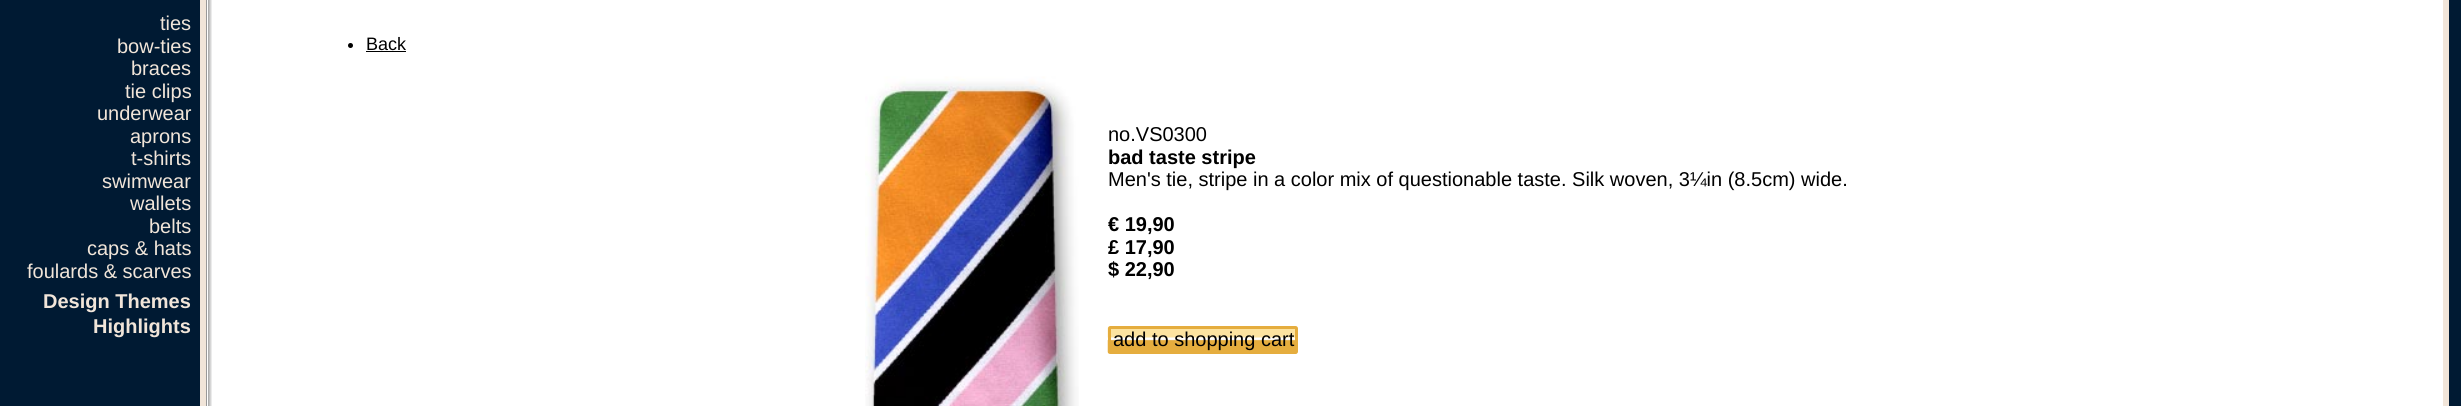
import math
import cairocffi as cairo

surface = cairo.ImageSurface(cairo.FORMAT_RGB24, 2461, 406)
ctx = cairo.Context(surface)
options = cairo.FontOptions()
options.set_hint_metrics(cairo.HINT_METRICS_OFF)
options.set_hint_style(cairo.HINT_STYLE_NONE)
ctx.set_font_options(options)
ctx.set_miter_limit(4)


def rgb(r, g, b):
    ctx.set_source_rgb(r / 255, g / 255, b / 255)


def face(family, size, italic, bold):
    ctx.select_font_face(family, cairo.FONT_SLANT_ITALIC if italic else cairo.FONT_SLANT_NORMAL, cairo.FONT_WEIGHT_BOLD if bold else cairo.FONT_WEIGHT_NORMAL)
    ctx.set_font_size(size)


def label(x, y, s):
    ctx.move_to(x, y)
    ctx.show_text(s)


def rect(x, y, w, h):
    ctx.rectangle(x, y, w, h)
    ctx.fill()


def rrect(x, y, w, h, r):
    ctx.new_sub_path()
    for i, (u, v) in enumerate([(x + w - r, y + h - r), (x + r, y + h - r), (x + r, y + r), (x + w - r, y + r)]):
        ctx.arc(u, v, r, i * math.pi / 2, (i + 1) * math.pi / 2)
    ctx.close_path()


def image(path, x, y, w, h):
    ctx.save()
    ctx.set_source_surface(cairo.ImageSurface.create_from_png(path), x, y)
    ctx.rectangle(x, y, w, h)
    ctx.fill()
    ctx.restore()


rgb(0, 26, 51)
ctx.paint()
face('Liberation Sans', 20, 0, 0)
rgb(241, 229, 217)
label(160, 30, 'ties')
label(117, 53, 'bow-ties')
label(131, 75, 'braces')
label(125, 98, 'tie clips')
label(97, 120, 'underwear')
label(130, 143, 'aprons')
label(131, 165, 't-shirts')
label(102, 188, 'swimwear')
label(130, 210, 'wallets')
label(149, 233, 'belts')
label(87, 255, 'caps & hats')
label(27, 278, 'foulards & scarves')
face('Liberation Sans', 20, 0, 1)
label(43, 308, 'Design Themes')
label(93, 333, 'Highlights')
rgb(255, 255, 255)
rect(207, 0, 2236, 406)
ctx.rectangle(203, -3, 2243, 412)
rgb(241, 229, 217)
ctx.set_line_width(6)
ctx.stroke()
rgb(153, 153, 153)
rect(206, 0, 1, 406)
rgb(173, 173, 173)
rect(208, 0, 1, 406)
rgb(194, 194, 194)
rect(209, 0, 1, 406)
rgb(214, 214, 214)
rect(210, 0, 1, 406)
rgb(235, 235, 235)
rect(211, 0, 1, 406)
rgb(0, 0, 0)
ctx.arc(350.5, 45.5, 2.5, 0, 2 * math.pi)
ctx.fill()
face('Liberation Sans', 18, 0, 0)
label(366, 50, 'Back')
rect(366, 51, 40, 1)
image('image0.png', 865, 76, 214, 330)
face('Liberation Sans', 20, 0, 0)
label(1108, 141, 'no.VS0300')
face('Liberation Sans', 20, 0, 1)
label(1108, 164, 'bad taste stripe')
face('Liberation Sans', 20, 0, 0)
label(1108, 186, 'Men\'s tie, stripe in a color mix of questionable taste. Silk woven, 3¼in (8.5cm) wide.')
face('Liberation Sans', 20, 0, 1)
label(1108, 231, '€ 19,90')
label(1108, 254, '£ 17,90')
label(1108, 276, '$ 22,90')
image('image1.png', 1107, 326, 191, 28)
rrect(1109.5, 327.5, 187, 25, 1)
rgb(229, 173, 62)
ctx.set_line_width(3)
ctx.stroke()
face('Liberation Sans', 20, 0, 0)
rgb(0, 0, 0)
label(1113, 346, 'add to shopping cart')
surface.write_to_png('render.png')
